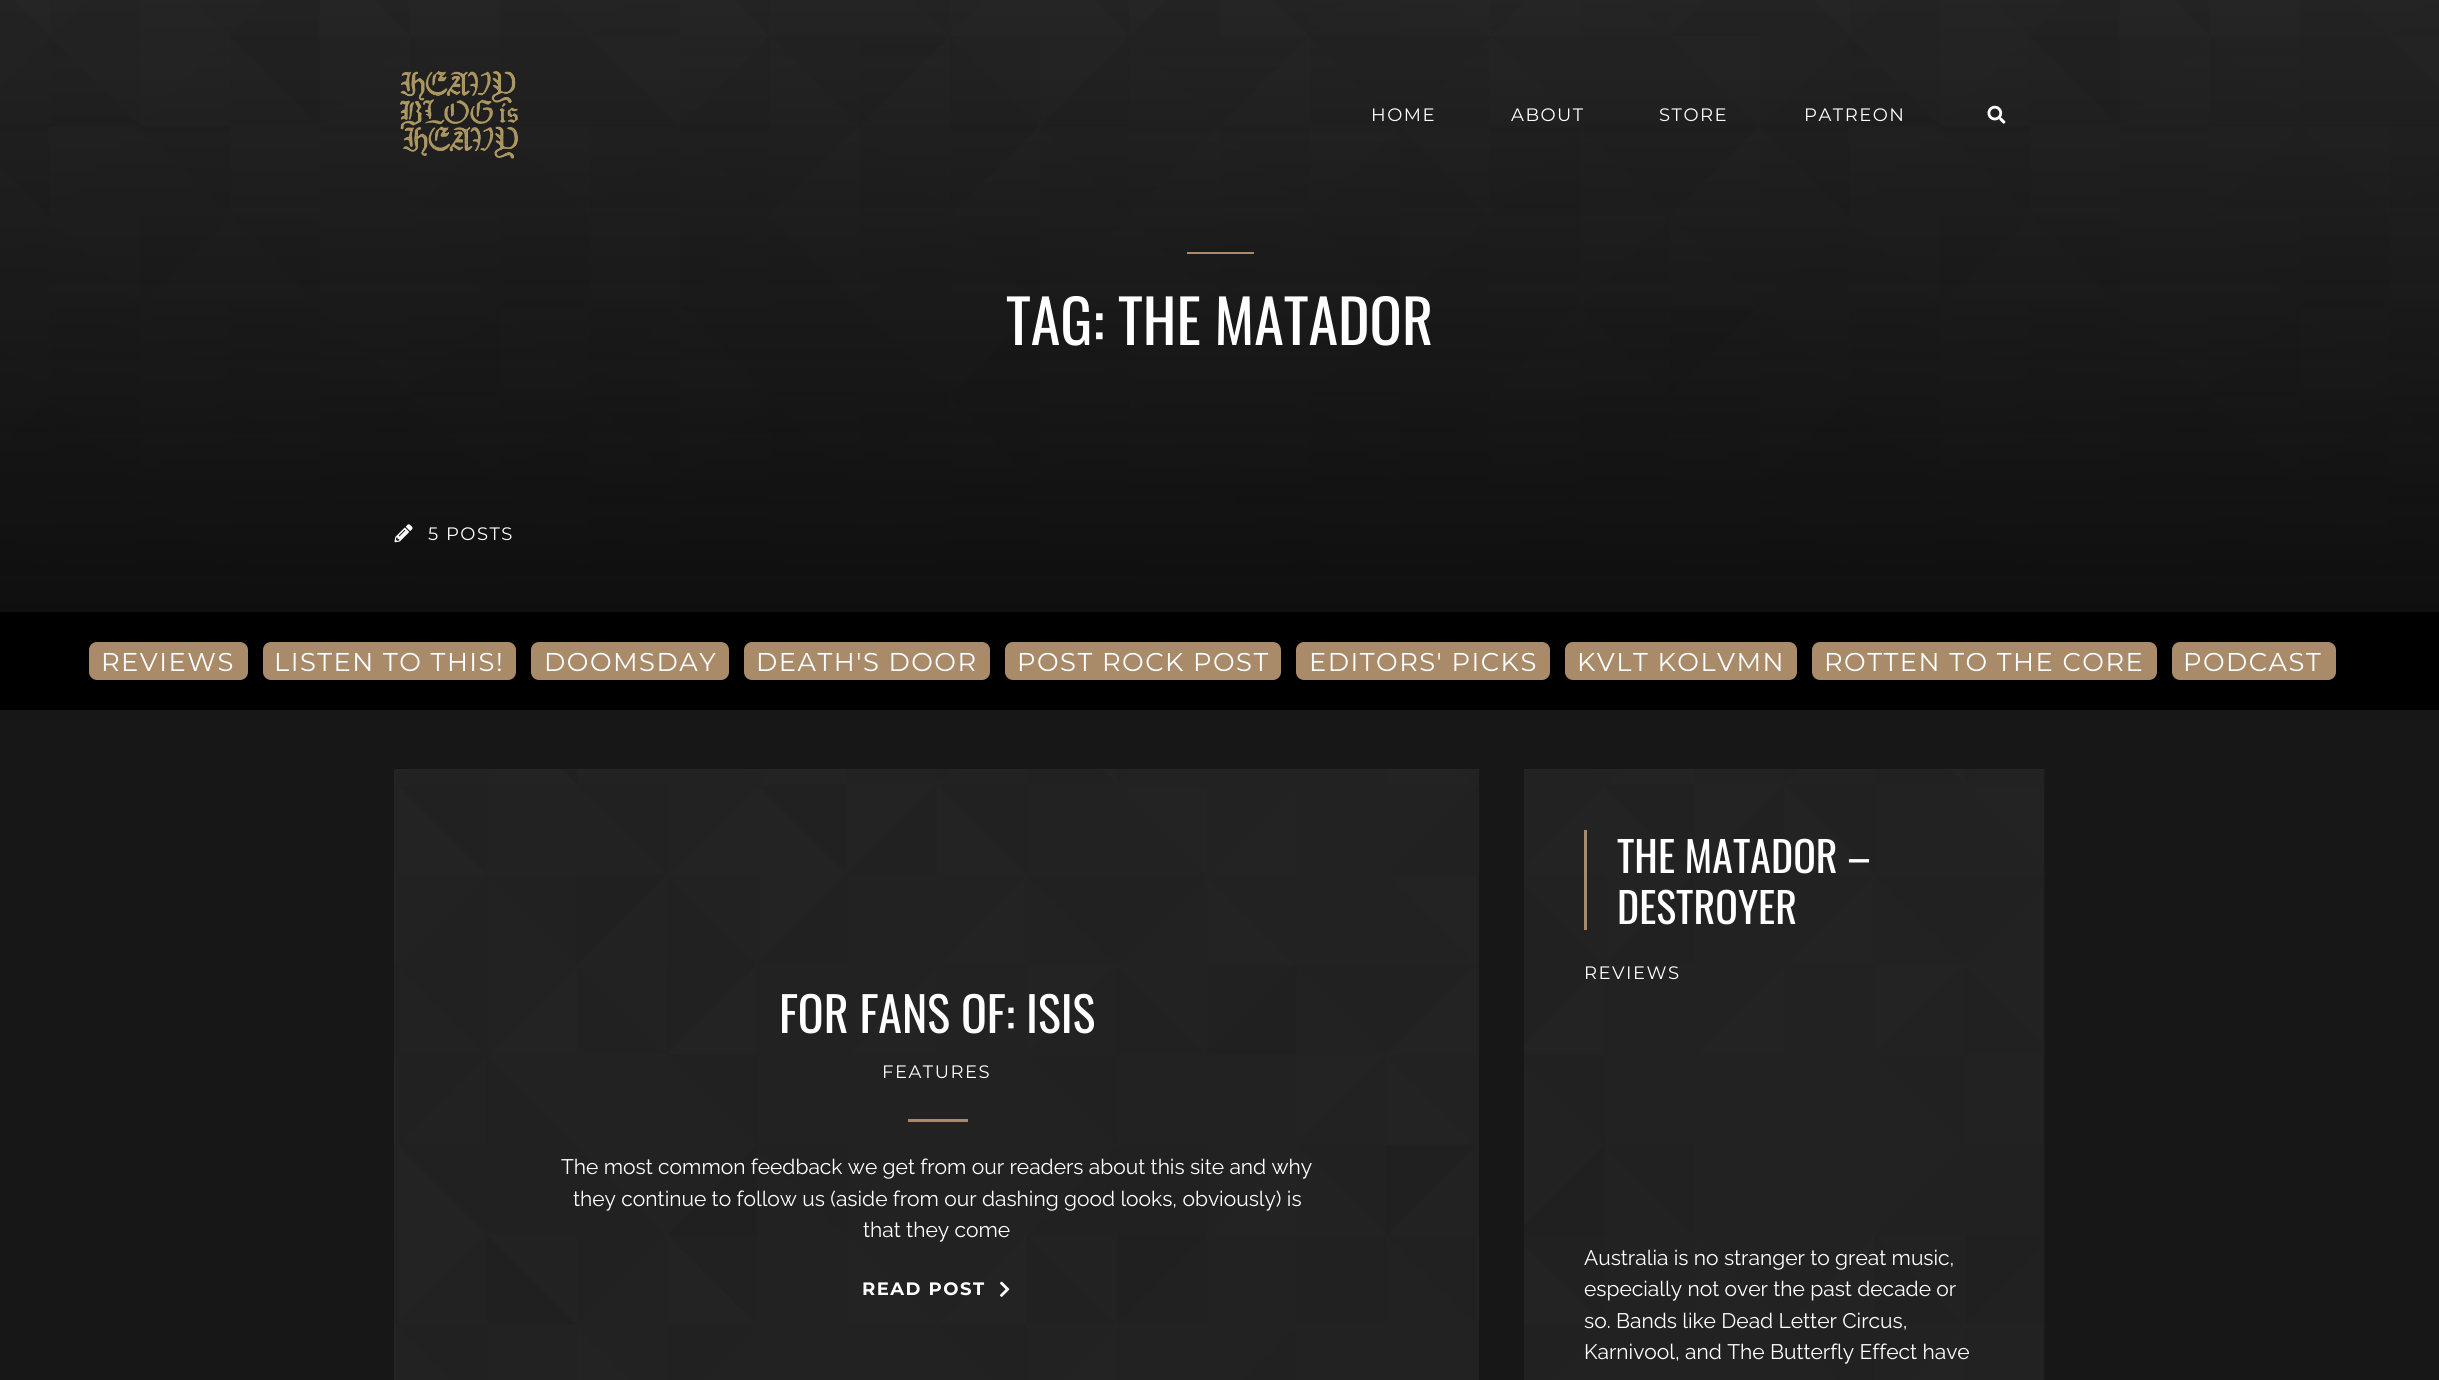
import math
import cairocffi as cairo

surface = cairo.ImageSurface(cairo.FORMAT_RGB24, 2439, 1380)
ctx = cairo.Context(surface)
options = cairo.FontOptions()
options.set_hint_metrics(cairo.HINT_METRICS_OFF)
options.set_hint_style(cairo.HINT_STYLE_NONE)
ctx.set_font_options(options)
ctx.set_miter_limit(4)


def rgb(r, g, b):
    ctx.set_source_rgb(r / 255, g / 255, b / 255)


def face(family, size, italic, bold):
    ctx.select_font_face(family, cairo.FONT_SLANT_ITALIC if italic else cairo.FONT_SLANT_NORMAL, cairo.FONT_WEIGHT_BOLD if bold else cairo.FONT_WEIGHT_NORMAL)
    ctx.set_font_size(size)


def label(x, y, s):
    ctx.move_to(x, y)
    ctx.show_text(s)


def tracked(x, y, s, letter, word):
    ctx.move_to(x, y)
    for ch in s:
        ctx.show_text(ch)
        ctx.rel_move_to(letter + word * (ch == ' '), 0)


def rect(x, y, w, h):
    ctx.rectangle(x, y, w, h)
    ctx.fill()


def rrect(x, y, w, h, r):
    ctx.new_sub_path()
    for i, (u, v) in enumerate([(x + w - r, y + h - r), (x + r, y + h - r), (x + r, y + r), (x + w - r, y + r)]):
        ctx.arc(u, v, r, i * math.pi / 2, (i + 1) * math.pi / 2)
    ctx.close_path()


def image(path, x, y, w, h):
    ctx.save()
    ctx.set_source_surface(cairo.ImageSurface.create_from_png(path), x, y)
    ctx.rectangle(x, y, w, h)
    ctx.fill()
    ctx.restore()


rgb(23, 23, 23)
ctx.paint()
rgb(19, 19, 19)
rect(2044, 770, 1, 610)
image('image2.png', 0, 0, 2439, 612)
image('image0.png', 400, 70, 118, 89)
face('Montserrat', 18, 0, 0)
rgb(255, 255, 255)
tracked(1371, 121, 'HOME', 1.5, 0)
tracked(1511, 121, 'ABOUT', 1.5, 0)
tracked(1659, 121, 'STORE', 1.5, 0)
tracked(1804, 121, 'PATREON', 1.5, 0)
image('image1.png', 1987, 105, 19, 19)
rgb(169, 139, 105)
rect(1187, 252, 67, 2)
face('Oswald', 60, 0, 0)
rgb(255, 255, 255)
label(1006, 345, 'TAG: THE MATADOR')
image('image3.png', 394, 524, 19, 19)
face('Montserrat', 18, 0, 0)
tracked(428, 540, '5 POSTS', 1.5, 0)
rgb(0, 0, 0)
rect(0, 612, 2439, 98)
rgb(169, 139, 105)
rrect(89, 642, 159, 38, 8)
ctx.fill()
face('Montserrat', 25.75, 0, 0)
rgb(255, 255, 255)
tracked(101, 671, 'REVIEWS', 1.5, 0)
rgb(169, 139, 105)
rrect(263, 642, 253, 38, 8)
ctx.fill()
rgb(255, 255, 255)
tracked(274, 671, 'LISTEN TO THIS!', 1.5, 0)
rgb(169, 139, 105)
rrect(531, 642, 198, 38, 8)
ctx.fill()
rgb(255, 255, 255)
tracked(544, 671, 'DOOMSDAY', 1.5, 0)
rgb(169, 139, 105)
rrect(744, 642, 246, 38, 8)
ctx.fill()
rgb(255, 255, 255)
tracked(756, 671, 'DEATH\'S DOOR', 1.5, 0)
rgb(169, 139, 105)
rrect(1005, 642, 276, 38, 8)
ctx.fill()
rgb(255, 255, 255)
tracked(1017, 671, 'POST ROCK POST', 1.5, 0)
rgb(169, 139, 105)
rrect(1296, 642, 254, 38, 8)
ctx.fill()
rgb(255, 255, 255)
tracked(1309, 671, 'EDITORS\' PICKS', 1.5, 0)
rgb(169, 139, 105)
rrect(1565, 642, 232, 38, 8)
ctx.fill()
rgb(255, 255, 255)
tracked(1577, 671, 'KVLT KOLVMN', 1.5, 0)
rgb(169, 139, 105)
rrect(1812, 642, 345, 38, 8)
ctx.fill()
rgb(255, 255, 255)
tracked(1824, 671, 'ROTTEN TO THE CORE', 1.5, 0)
rgb(169, 139, 105)
rrect(2172, 642, 164, 38, 8)
ctx.fill()
rgb(255, 255, 255)
tracked(2183, 671, 'PODCAST', 1.5, 0)
image('image4.png', 394, 769, 1085, 611)
face('Oswald', 48, 0, 0)
label(779, 1033, 'FOR FANS OF: ISIS')
face('Montserrat', 18, 0, 0)
tracked(882, 1078, 'FEATURES', 1.5, 0)
rgb(169, 139, 105)
rect(908, 1119, 60, 3)
face('Raleway', 21, 0, 0)
rgb(255, 255, 255)
label(561, 1174, 'The most common feedback we get from our readers about this site and why')
label(573, 1206, 'they continue to follow us (aside from our dashing good looks, obviously) is')
label(863, 1237, 'that they come')
face('Montserrat', 18, 0, 1)
tracked(862, 1295, 'READ POST', 1.5, 0)
image('image5.png', 1000, 1281, 10, 16)
image('image6.png', 1524, 769, 521, 611)
rgb(169, 139, 105)
rect(1584, 830, 3, 100)
face('Oswald', 42, 0, 0)
rgb(255, 255, 255)
label(1617, 873, 'THE MATADOR –')
label(1617, 924, 'DESTROYER')
face('Montserrat', 18, 0, 0)
tracked(1584, 979, 'REVIEWS', 1.5, 0)
face('Raleway', 21, 0, 0)
label(1584, 1265, 'Australia is no stranger to great music,')
label(1584, 1296, 'especially not over the past decade or')
label(1584, 1328, 'so. Bands like Dead Letter Circus,')
label(1584, 1359, 'Karnivool, and The Butterfly Effect have')
surface.write_to_png('render.png')
